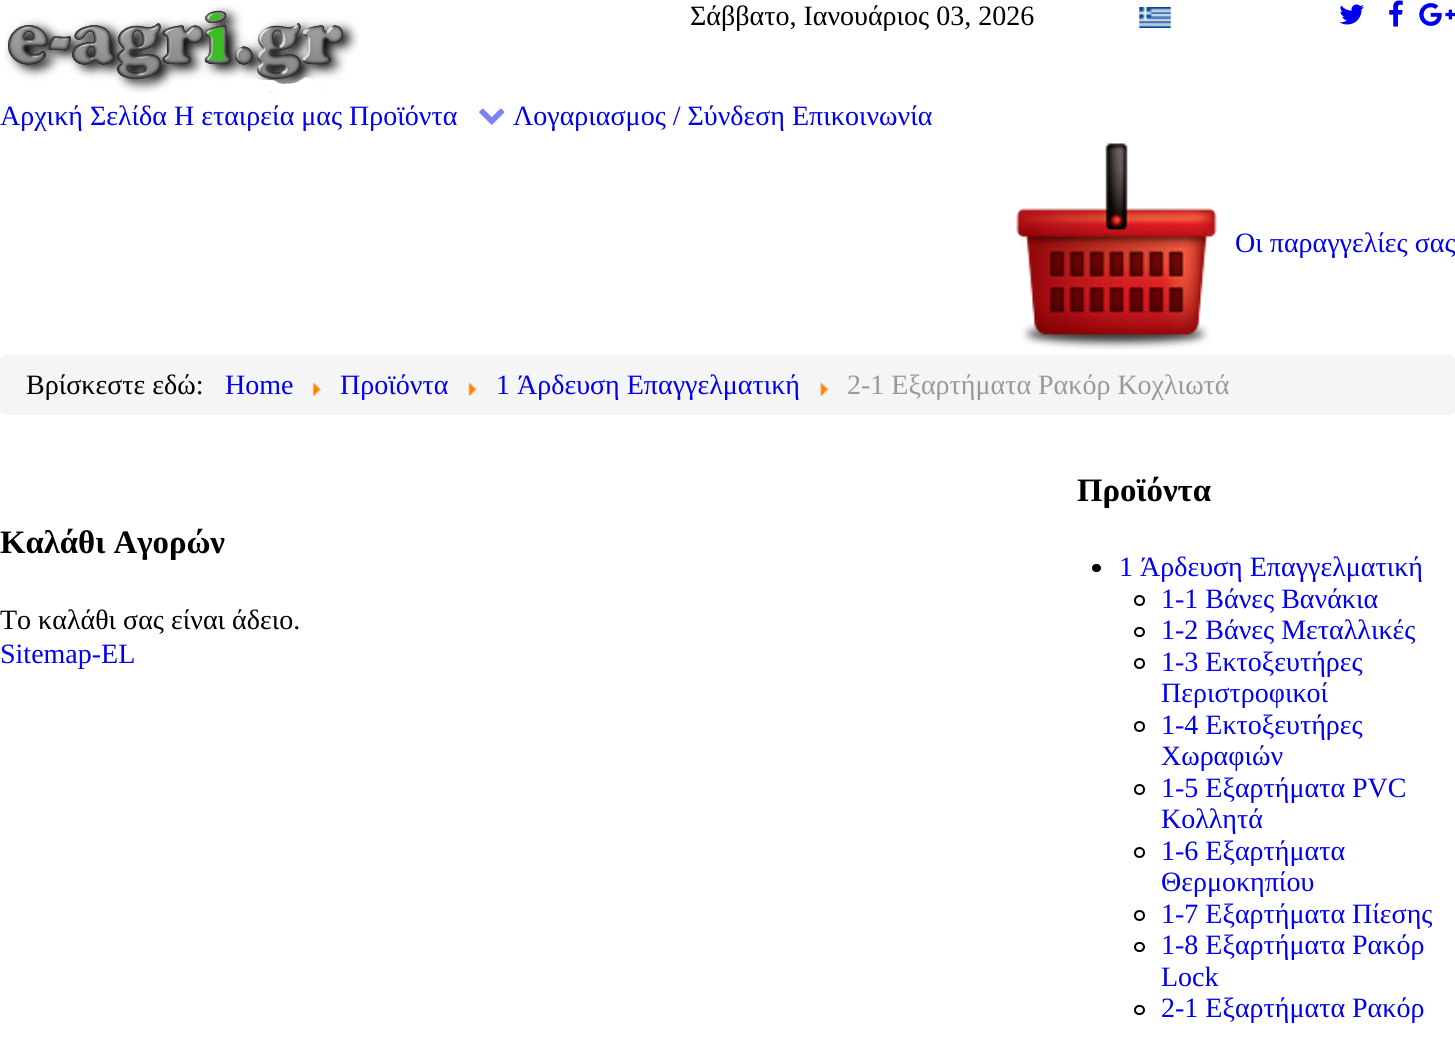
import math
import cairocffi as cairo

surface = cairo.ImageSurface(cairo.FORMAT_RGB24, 1455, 1040)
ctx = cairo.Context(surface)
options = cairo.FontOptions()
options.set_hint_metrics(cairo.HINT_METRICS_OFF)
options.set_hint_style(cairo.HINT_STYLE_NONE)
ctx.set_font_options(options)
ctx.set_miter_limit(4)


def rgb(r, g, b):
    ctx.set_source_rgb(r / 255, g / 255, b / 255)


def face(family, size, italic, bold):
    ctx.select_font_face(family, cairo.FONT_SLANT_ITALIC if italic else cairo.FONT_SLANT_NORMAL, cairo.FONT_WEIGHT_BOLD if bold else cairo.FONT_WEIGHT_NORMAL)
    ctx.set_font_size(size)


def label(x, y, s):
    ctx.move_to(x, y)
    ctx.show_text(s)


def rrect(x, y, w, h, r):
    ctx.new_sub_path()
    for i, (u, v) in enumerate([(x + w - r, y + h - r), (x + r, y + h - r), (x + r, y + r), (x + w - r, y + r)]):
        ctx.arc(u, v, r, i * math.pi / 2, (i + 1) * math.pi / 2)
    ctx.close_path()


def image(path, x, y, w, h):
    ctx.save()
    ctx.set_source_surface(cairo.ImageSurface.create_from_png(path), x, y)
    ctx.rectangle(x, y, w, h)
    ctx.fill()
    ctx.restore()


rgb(255, 255, 255)
ctx.paint()
image('image0.png', 4, 5, 355, 88)
face('Liberation Serif', 28, 0, 0)
rgb(0, 0, 0)
label(690, 25, 'Σάββατο, Ιανουάριος 03, 2026')
image('image1.png', 1139, 7, 32, 21)
image('image2.png', 1339, 4, 25, 21)
image('image3.png', 1389, 0, 14, 27)
image('image4.png', 1419, 3, 36, 23)
rgb(0, 0, 238)
label(0, 125, 'Αρχική Σελίδα Η εταιρεία μας Προϊόντα')
image('image5.png', 479, 108, 26, 17)
label(513, 125, 'Λογαριασμος / Σύνδεση Επικοινωνία')
image('image6.png', 1016, 143, 201, 207)
label(1235, 252, 'Οι παραγγελίες σας')
rgb(245, 245, 245)
rrect(0, 355, 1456, 60, 7)
ctx.fill()
rgb(0, 0, 0)
label(26, 394, 'Βρίσκεστε εδώ:')
rgb(0, 0, 238)
label(225, 394, 'Home')
image('image7.png', 312, 382, 9, 14)
label(340, 394, 'Προϊόντα')
image('image8.png', 468, 382, 9, 14)
label(496, 394, '1 Άρδευση Επαγγελματική')
image('image9.png', 820, 382, 9, 14)
rgb(153, 153, 153)
label(847, 394, '2-1 Εξαρτήματα Ρακόρ Κοχλιωτά')
face('Liberation Serif', 32.75, 0, 1)
rgb(0, 0, 0)
label(0, 553, 'Καλάθι Αγορών')
face('Liberation Serif', 28, 0, 0)
label(0, 629, 'Το καλάθι σας είναι άδειο.')
rgb(0, 0, 238)
label(0, 663, 'Sitemap-EL')
face('Liberation Serif', 32.75, 0, 1)
rgb(0, 0, 0)
label(1077, 501, 'Προϊόντα')
rrect(1092, 564, 9, 8, 4)
ctx.fill()
face('Liberation Serif', 28, 0, 0)
rgb(0, 0, 238)
label(1119, 576, '1 Άρδευση Επαγγελματική')
ctx.new_path()
ctx.arc(1139.5, 600.5, 4.5, 0, 2 * math.pi)
rgb(0, 0, 0)
ctx.stroke()
rgb(0, 0, 238)
label(1161, 608, '1-1 Βάνες Βανάκια')
rrect(1135, 628, 9, 8, 4)
rgb(0, 0, 0)
ctx.stroke()
rgb(0, 0, 238)
label(1161, 639, '1-2 Βάνες Μεταλλικές')
ctx.new_path()
ctx.arc(1139.5, 663.5, 4.5, 0, 2 * math.pi)
rgb(0, 0, 0)
ctx.stroke()
rgb(0, 0, 238)
label(1161, 671, '1-3 Εκτοξευτήρες')
label(1161, 702, 'Περιστροφικοί')
ctx.new_path()
ctx.arc(1139.5, 726.5, 4.5, 0, 2 * math.pi)
rgb(0, 0, 0)
ctx.stroke()
rgb(0, 0, 238)
label(1161, 734, '1-4 Εκτοξευτήρες')
label(1161, 765, 'Χωραφιών')
ctx.new_path()
ctx.arc(1139.5, 789.5, 4.5, 0, 2 * math.pi)
rgb(0, 0, 0)
ctx.stroke()
rgb(0, 0, 238)
label(1161, 797, '1-5 Εξαρτήματα PVC')
label(1161, 828, 'Κολλητά')
ctx.new_path()
ctx.arc(1139.5, 852.5, 4.5, 0, 2 * math.pi)
rgb(0, 0, 0)
ctx.stroke()
rgb(0, 0, 238)
label(1161, 860, '1-6 Εξαρτήματα')
label(1161, 891, 'Θερμοκηπίου')
ctx.new_path()
ctx.arc(1139.5, 915.5, 4.5, 0, 2 * math.pi)
rgb(0, 0, 0)
ctx.stroke()
rgb(0, 0, 238)
label(1161, 923, '1-7 Εξαρτήματα Πίεσης')
rrect(1135, 943, 9, 8, 4)
rgb(0, 0, 0)
ctx.stroke()
rgb(0, 0, 238)
label(1161, 954, '1-8 Εξαρτήματα Ρακόρ')
label(1161, 986, 'Lock')
rrect(1135, 1006, 9, 8, 4)
rgb(0, 0, 0)
ctx.stroke()
rgb(0, 0, 238)
label(1161, 1017, '2-1 Εξαρτήματα Ρακόρ')
surface.write_to_png('render.png')
